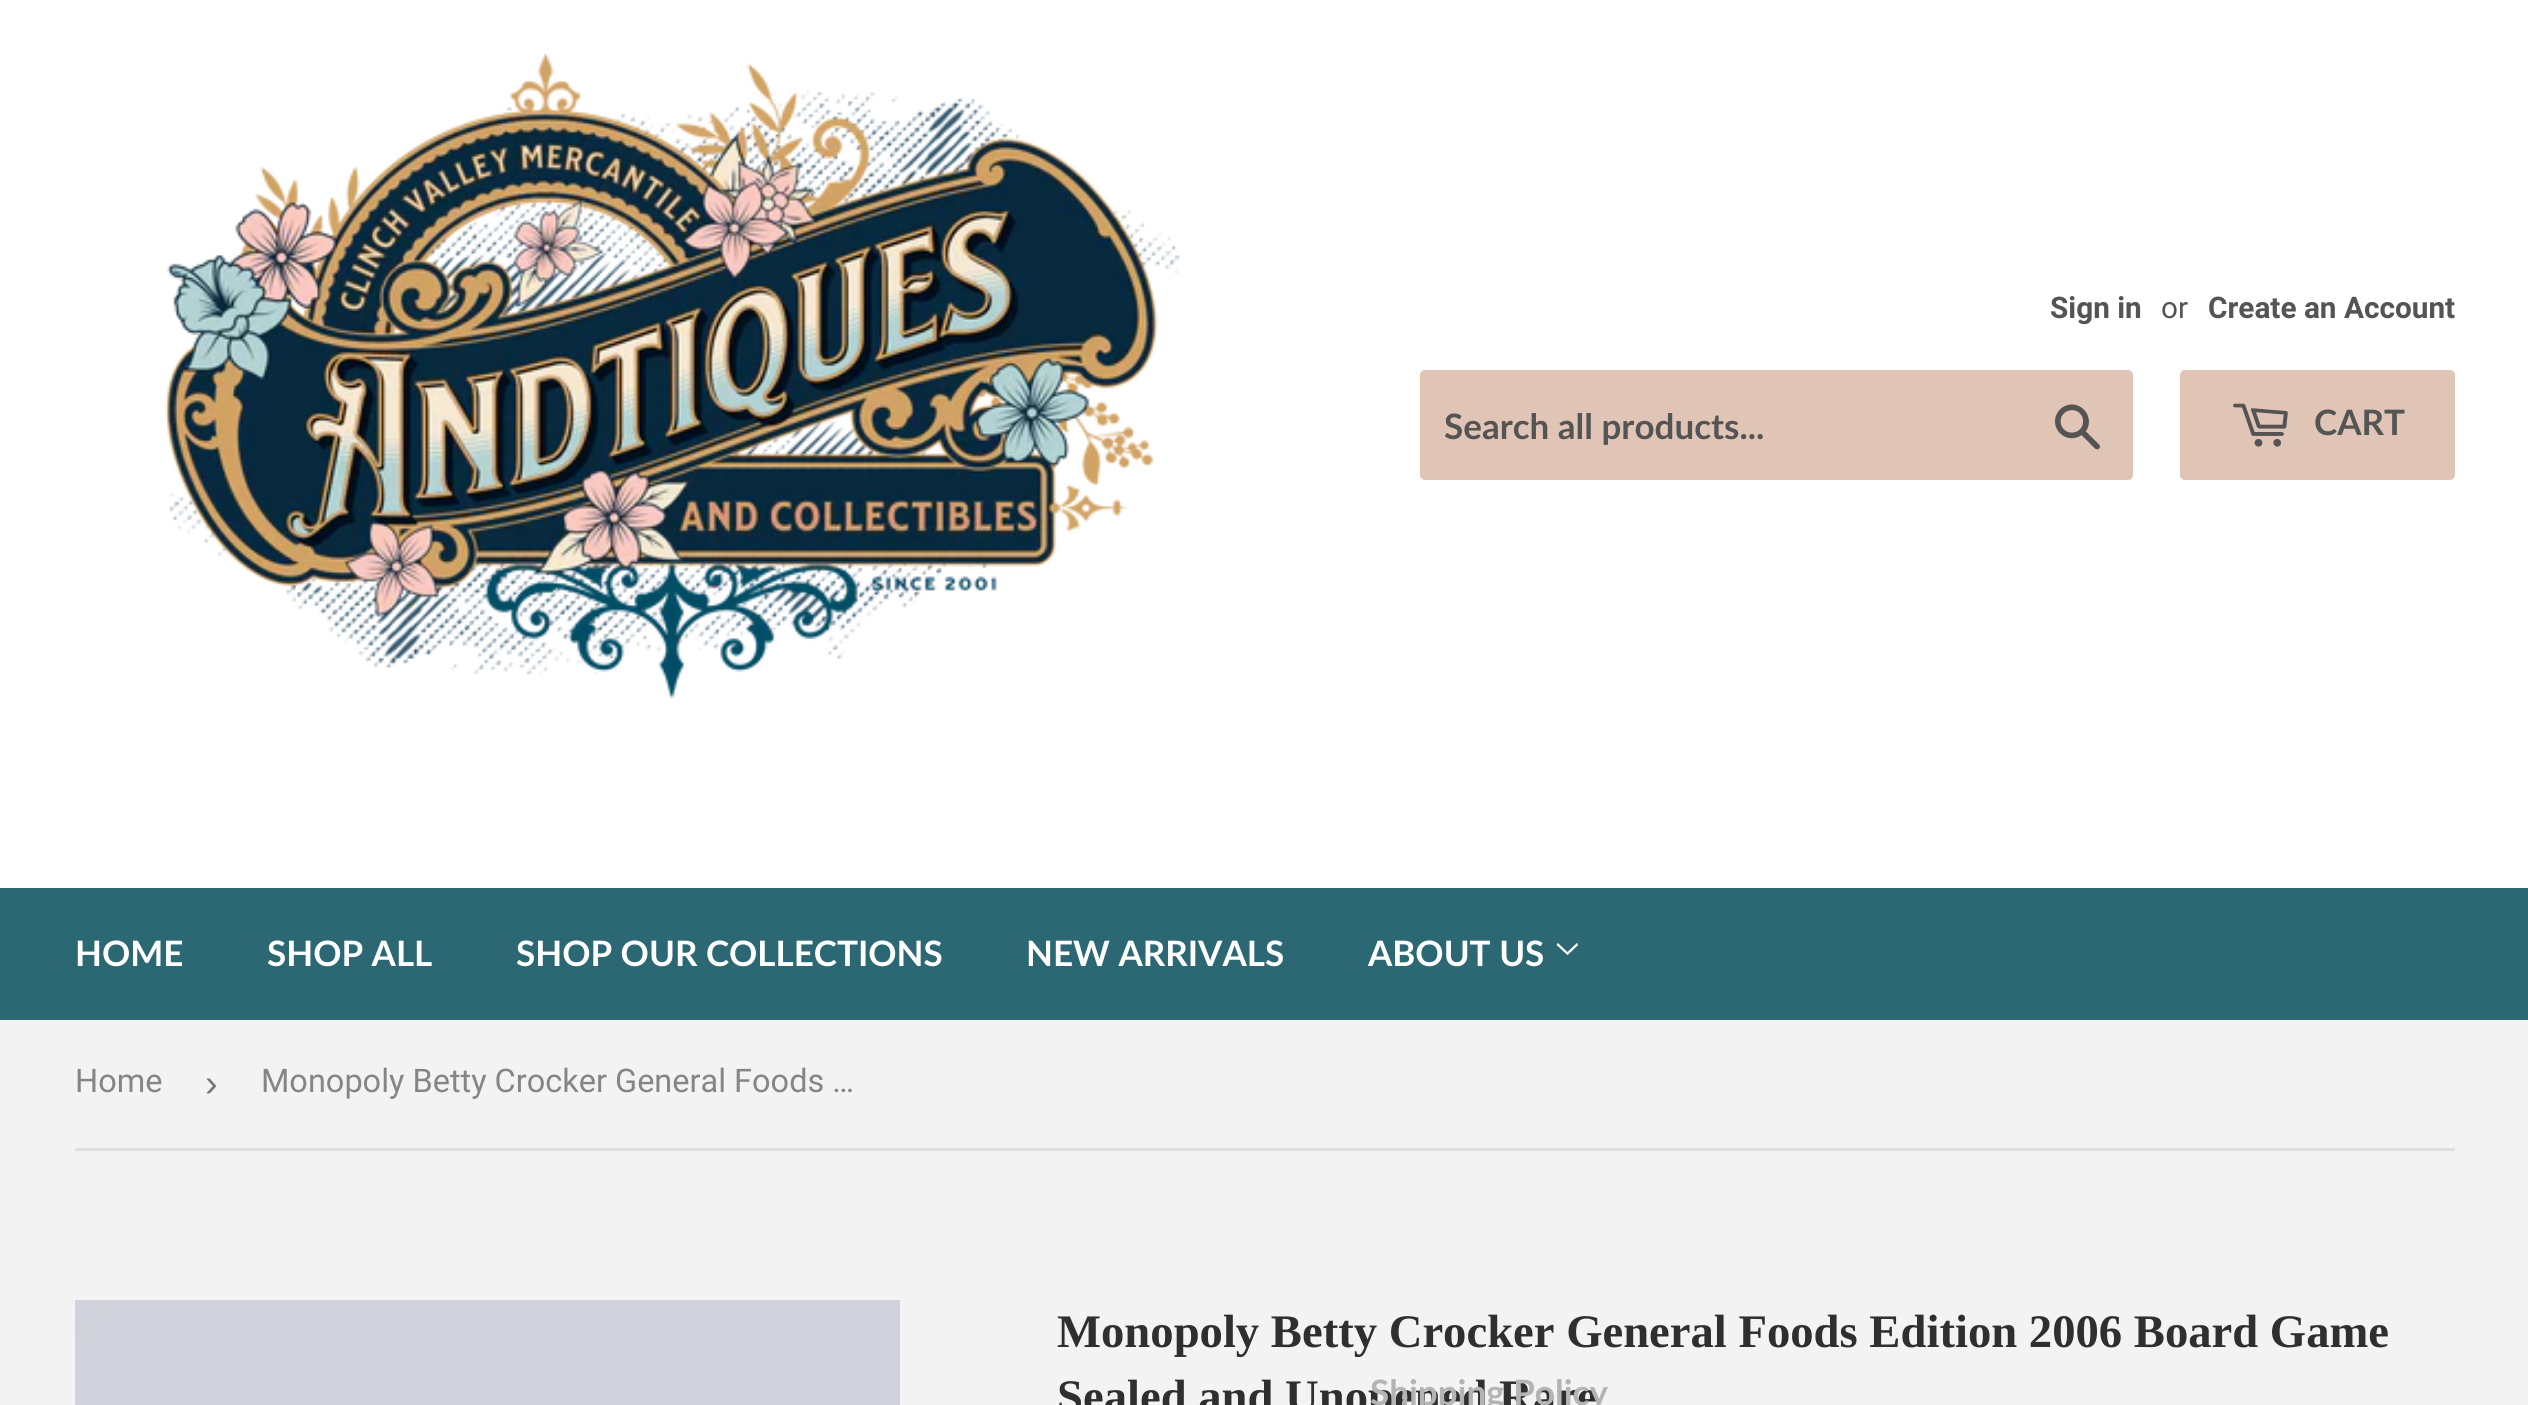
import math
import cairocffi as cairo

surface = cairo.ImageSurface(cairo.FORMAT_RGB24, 2528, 1405)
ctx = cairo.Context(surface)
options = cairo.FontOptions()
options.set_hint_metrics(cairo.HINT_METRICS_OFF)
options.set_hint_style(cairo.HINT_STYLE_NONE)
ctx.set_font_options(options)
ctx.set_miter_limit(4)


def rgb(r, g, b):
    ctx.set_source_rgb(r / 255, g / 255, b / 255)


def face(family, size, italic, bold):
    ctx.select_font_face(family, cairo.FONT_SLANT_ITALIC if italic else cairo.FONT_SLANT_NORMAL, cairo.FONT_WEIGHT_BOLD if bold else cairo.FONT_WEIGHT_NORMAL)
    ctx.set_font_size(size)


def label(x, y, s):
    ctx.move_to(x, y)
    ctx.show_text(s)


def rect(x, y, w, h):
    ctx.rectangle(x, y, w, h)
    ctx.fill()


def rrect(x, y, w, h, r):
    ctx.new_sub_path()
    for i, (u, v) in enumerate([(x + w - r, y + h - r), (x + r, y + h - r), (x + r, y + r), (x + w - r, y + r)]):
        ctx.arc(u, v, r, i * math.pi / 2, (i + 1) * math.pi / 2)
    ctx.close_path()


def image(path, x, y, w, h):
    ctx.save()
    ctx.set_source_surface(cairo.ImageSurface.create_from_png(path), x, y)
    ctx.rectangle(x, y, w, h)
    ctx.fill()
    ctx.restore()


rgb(243, 243, 243)
ctx.paint()
rgb(255, 255, 255)
rect(0, 0, 2528, 888)
image('image0.png', 165, 52, 1015, 647)
face('Roboto', 29.75, 0, 1)
rgb(84, 84, 84)
label(2050, 318, 'Sign in')
face('Roboto', 29.75, 0, 0)
label(2161, 318, 'or')
face('Roboto', 29.75, 0, 1)
label(2208, 318, 'Create an Account')
rgb(224, 197, 182)
rrect(1420, 370, 713, 110, 5)
ctx.fill()
face('Lato', 35, 0, 1)
rgb(84, 84, 84)
label(1444, 439, 'Search all products...')
image('image1.png', 2055, 404, 45, 46)
rgb(224, 197, 182)
rrect(2180, 370, 275, 110, 5)
ctx.fill()
image('image2.png', 2233, 403, 55, 44)
rgb(84, 84, 84)
label(2314, 435, 'CART')
rgb(43, 104, 115)
rect(0, 888, 2528, 132)
rgb(255, 255, 255)
label(75, 966, 'HOME')
label(267, 966, 'SHOP ALL')
label(516, 966, 'SHOP OUR COLLECTIONS')
label(1026, 966, 'NEW ARRIVALS')
label(1368, 966, 'ABOUT US')
image('image3.png', 1556, 943, 22, 12)
face('Liberation Serif', 46.65, 0, 1)
rgb(47, 47, 47)
label(1057, 1412, 'Sealed and Unopened Rare')
face('Lato', 35, 0, 1)
rgb(180, 180, 180)
label(1370, 1405, 'Shipping Policy')
rgb(222, 222, 222)
rect(75, 1148, 2380, 3)
face('Roboto', 32.5, 0, 0)
rgb(133, 133, 133)
label(75, 1092, 'Home')
face('Liberation Sans', 38, 0, 0)
rgb(118, 118, 118)
label(205, 1096, '›')
face('Roboto', 32.5, 0, 0)
rgb(133, 133, 133)
label(261, 1092, 'Monopoly Betty Crocker General Foods …')
image('image4.png', 75, 1300, 825, 105)
face('Liberation Serif', 46.65, 0, 1)
rgb(47, 47, 47)
label(1057, 1347, 'Monopoly Betty Crocker General Foods Edition 2006 Board Game')
surface.write_to_png('render.png')
